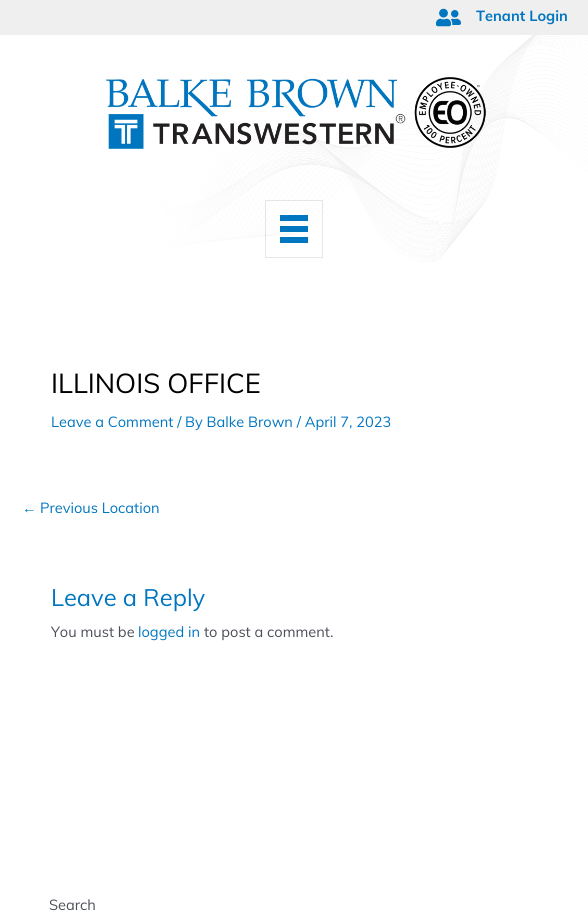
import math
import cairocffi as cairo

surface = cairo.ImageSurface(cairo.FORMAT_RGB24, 588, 912)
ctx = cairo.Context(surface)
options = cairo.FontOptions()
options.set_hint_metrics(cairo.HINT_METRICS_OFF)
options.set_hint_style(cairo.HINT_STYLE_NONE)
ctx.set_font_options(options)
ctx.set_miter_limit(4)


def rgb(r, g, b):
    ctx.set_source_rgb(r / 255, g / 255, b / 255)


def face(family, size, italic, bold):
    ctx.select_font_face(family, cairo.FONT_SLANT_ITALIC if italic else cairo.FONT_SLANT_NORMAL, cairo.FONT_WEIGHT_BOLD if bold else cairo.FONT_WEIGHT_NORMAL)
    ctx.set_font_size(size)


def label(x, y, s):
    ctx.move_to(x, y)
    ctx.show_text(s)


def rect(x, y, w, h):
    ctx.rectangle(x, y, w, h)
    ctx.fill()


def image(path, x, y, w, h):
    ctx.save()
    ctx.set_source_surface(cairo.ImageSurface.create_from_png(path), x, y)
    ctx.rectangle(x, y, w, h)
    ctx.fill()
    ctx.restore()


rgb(255, 255, 255)
ctx.paint()
rgb(239, 239, 239)
rect(0, 0, 588, 35)
image('image0.png', 436, 8, 25, 19)
face('Muli', 14.6, 0, 1)
rgb(0, 118, 192)
label(476, 21, 'Tenant Login')
image('image1.png', 149, 35, 439, 228)
gradient = cairo.LinearGradient(0, 162, 588, 162)
gradient.add_color_stop_rgba(0.25, 1, 1, 1, 1)
gradient.add_color_stop_rgba(0.5, 1, 1, 1, 0.59)
ctx.set_source(gradient)
rect(149, 35, 439, 228)
image('image2.png', 106, 77, 380, 72)
ctx.rectangle(265.5, 200.5, 57, 57)
ctx.set_source_rgba(0, 0, 0, 0.1)
ctx.set_line_width(1)
ctx.stroke()
rgb(0, 118, 192)
rect(280, 215, 28, 6)
rect(280, 226, 28, 6)
rect(280, 237, 28, 6)
face('Muli', 27.25, 0, 0)
rgb(0, 0, 0)
label(51, 393, 'ILLINOIS OFFICE')
face('Muli', 14.6, 0, 0)
rgb(0, 118, 192)
label(51, 427, 'Leave a Comment / By Balke Brown / April 7, 2023')
face('Liberation Sans', 14.6, 0, 0)
label(22, 513, '←')
face('Muli', 14.6, 0, 0)
label(40, 513, 'Previous Location')
face('Muli', 23.75, 0, 0)
label(51, 606, 'Leave a Reply')
face('Muli', 14.6, 0, 0)
rgb(75, 79, 88)
label(51, 637, 'You must be')
rgb(0, 118, 192)
label(138, 637, 'logged in')
rgb(75, 79, 88)
label(204, 637, 'to post a comment.')
label(49, 910, 'Search')
surface.write_to_png('render.png')
